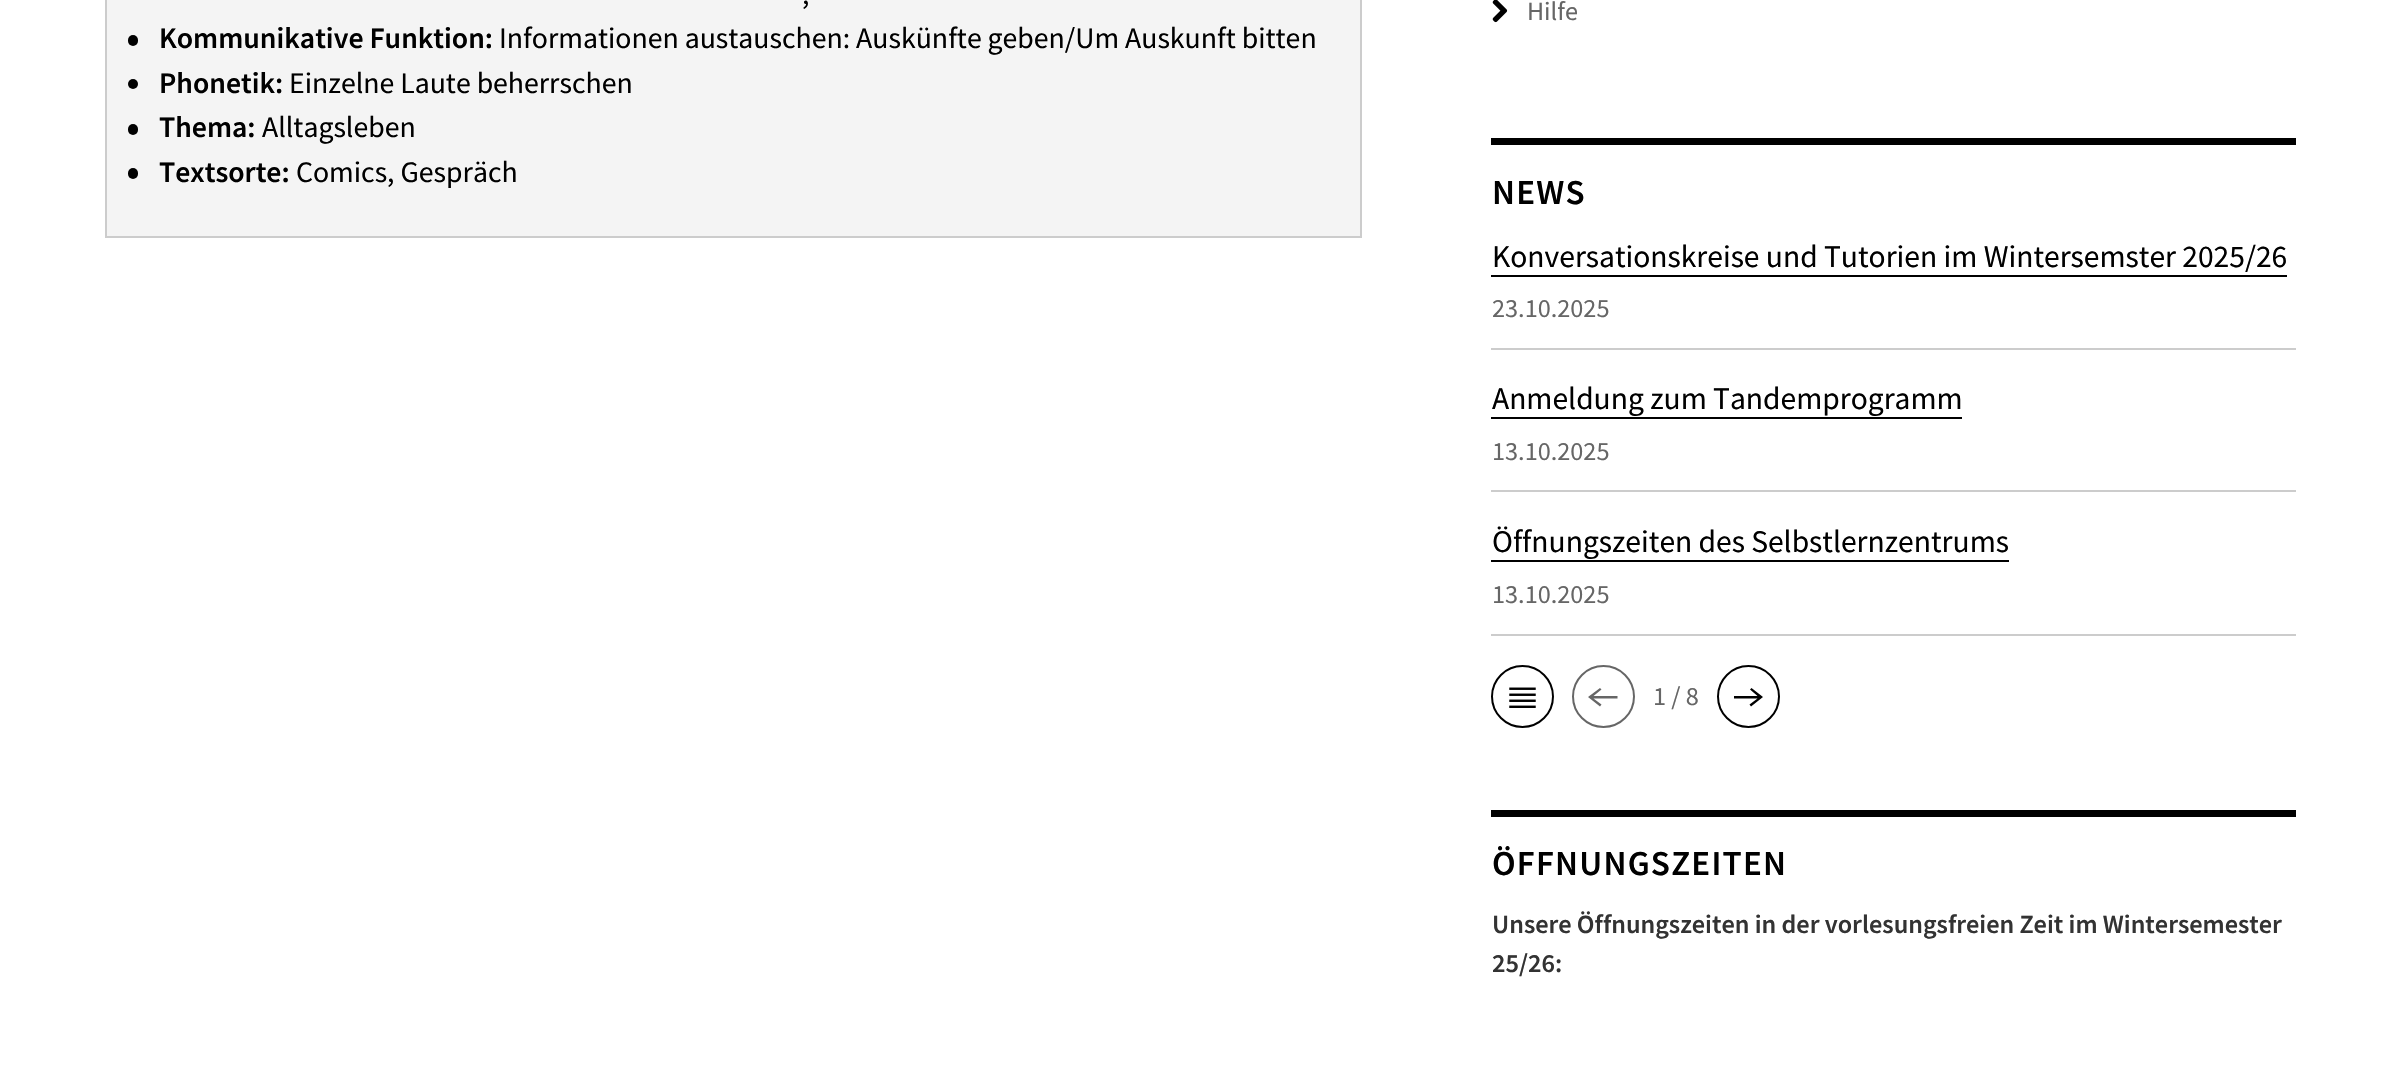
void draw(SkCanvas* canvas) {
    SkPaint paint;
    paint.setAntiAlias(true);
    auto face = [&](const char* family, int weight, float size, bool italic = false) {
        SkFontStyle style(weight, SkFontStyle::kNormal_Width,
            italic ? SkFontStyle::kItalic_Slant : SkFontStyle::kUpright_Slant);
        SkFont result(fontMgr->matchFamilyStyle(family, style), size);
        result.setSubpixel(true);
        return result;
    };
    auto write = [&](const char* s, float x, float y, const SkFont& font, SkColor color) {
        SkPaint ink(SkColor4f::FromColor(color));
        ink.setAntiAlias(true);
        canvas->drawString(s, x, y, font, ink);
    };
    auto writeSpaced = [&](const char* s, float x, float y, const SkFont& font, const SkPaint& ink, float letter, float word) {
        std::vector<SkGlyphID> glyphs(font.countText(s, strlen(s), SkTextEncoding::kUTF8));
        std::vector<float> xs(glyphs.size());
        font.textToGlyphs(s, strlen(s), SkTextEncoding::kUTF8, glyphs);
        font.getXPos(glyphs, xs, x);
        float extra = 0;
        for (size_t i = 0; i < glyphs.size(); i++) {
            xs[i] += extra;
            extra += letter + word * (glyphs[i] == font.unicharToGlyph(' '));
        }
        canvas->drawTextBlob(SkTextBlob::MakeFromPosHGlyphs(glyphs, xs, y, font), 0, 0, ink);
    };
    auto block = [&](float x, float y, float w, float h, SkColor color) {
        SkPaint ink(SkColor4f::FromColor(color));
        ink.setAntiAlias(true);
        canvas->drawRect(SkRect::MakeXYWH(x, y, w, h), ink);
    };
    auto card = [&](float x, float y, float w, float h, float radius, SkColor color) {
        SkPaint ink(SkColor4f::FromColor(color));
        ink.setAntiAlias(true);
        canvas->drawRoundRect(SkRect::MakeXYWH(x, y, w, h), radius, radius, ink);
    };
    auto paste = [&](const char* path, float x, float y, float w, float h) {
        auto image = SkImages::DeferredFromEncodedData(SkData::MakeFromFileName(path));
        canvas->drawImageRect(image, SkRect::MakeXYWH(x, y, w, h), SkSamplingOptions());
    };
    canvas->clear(SK_ColorWHITE);
    paint.setColor(SkColorSetRGB(244, 244, 244));
    canvas->drawRect(SkRect::MakeXYWH(106, -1, 1255, 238), paint);
    paint.setStyle(SkPaint::kStroke_Style);
    paint.setStrokeWidth(2);
    paint.setColor(SkColorSetRGB(204, 204, 204));
    canvas->drawRect(SkRect::MakeXYWH(106, -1, 1255, 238), paint);
    auto kFont1 = face("Source Sans Pro", 400, 29.75f);
    write(",", 802, 4, kFont1, SK_ColorBLACK);
    card(128, 35, 10, 11, 5, SK_ColorBLACK);
    auto kFont2 = face("Source Sans Pro", 600, 29.75f);
    write("Kommunikative Funktion:", 159, 48, kFont2, SK_ColorBLACK);
    write("Informationen austauschen: Auskünfte geben/Um Auskunft bitten", 499, 48, kFont1, SK_ColorBLACK);
    paint.setStyle(SkPaint::kFill_Style);
    paint.setColor(SK_ColorBLACK);
    canvas->drawCircle(133, 84, 5, paint);
    write("Phonetik:", 159, 93, kFont2, SK_ColorBLACK);
    write("Einzelne Laute beherrschen", 289, 93, kFont1, SK_ColorBLACK);
    card(128, 124, 10, 11, 5, SK_ColorBLACK);
    write("Thema:", 159, 137, kFont2, SK_ColorBLACK);
    write("Alltagsleben", 262, 137, kFont1, SK_ColorBLACK);
    card(128, 168, 10, 11, 5, SK_ColorBLACK);
    write("Textsorte:", 159, 182, kFont2, SK_ColorBLACK);
    write("Comics, Gespräch", 296, 182, kFont1, SK_ColorBLACK);
    paste("pic1.png", 1492, 0, 16, 23);
    auto kFont3 = face("Source Sans Pro", 400, 26.25f);
    write("Hilfe", 1527, 20, kFont3, SkColorSetRGB(102, 102, 102));
    block(1491, 138, 805, 7, SK_ColorBLACK);
    auto kFont4 = face("Source Sans Pro", 600, 35);
    writeSpaced("NEWS", 1492, 204, kFont4, paint, 1.25f, 0);
    block(1491, 348, 805, 2, SkColorSetRGB(204, 204, 204));
    auto kFont5 = face("Source Sans Pro", 400, 31.5f);
    write("Konversationskreise und Tutorien im Wintersemster 2025/26", 1492, 267, kFont5, SK_ColorBLACK);
    block(1491, 275, 796, 2, SK_ColorBLACK);
    write("23.10.2025", 1492, 317, kFont3, SkColorSetRGB(102, 102, 102));
    block(1491, 490, 805, 2, SkColorSetRGB(204, 204, 204));
    write("Anmeldung zum Tandemprogramm", 1492, 409, kFont5, SK_ColorBLACK);
    block(1491, 417, 471, 2, SK_ColorBLACK);
    write("13.10.2025", 1492, 460, kFont3, SkColorSetRGB(102, 102, 102));
    block(1491, 634, 805, 2, SkColorSetRGB(204, 204, 204));
    write("Öffnungszeiten des Selbstlernzentrums", 1492, 552, kFont5, SK_ColorBLACK);
    block(1491, 560, 518, 2, SK_ColorBLACK);
    write("13.10.2025", 1492, 603, kFont3, SkColorSetRGB(102, 102, 102));
    paint.setStyle(SkPaint::kStroke_Style);
    canvas->drawCircle(1522.5f, 696.5f, 30.5f, paint);
    paste("pic2.png", 1509, 687, 27, 21);
    paint.setColor(SkColorSetRGB(102, 102, 102));
    canvas->drawCircle(1603.5f, 696.5f, 30.5f, paint);
    paint.setStyle(SkPaint::kFill_Style);
    canvas->drawPath(SkPathBuilder().moveTo(1617.5f, 696).lineTo(1593.5f, 696).lineTo(1601.5f, 689.5f).lineTo(1600, 688).lineTo(1588, 697).lineTo(1600, 706.5f).lineTo(1601.5f, 704.5f).lineTo(1593.5f, 698.5f).lineTo(1617.5f, 698.5f).close().detach(), paint);
    write("1 / 8", 1653, 705, kFont3, SkColorSetRGB(102, 102, 102));
    paint.setStyle(SkPaint::kStroke_Style);
    paint.setColor(SK_ColorBLACK);
    canvas->drawCircle(1748.5f, 696.5f, 30.5f, paint);
    paint.setStyle(SkPaint::kFill_Style);
    canvas->drawPath(SkPathBuilder().moveTo(1751.5f, 688).lineTo(1750, 689.5f).lineTo(1757.5f, 696).lineTo(1734, 696).lineTo(1734, 698.5f).lineTo(1757.5f, 698.5f).lineTo(1749.5f, 704.5f).lineTo(1751, 706.5f).lineTo(1763, 697).close().detach(), paint);
    block(1491, 810, 805, 7, SK_ColorBLACK);
    writeSpaced("ÖFFNUNGSZEITEN", 1492, 875, kFont4, paint, 1.25f, 0);
    auto kFont6 = face("Source Sans Pro", 600, 26.25f);
    write("Unsere Öffnungszeiten in der vorlesungsfreien Zeit im Wintersemester", 1492, 933, kFont6, SkColorSetRGB(51, 51, 51));
    write("25/26:", 1492, 972, kFont6, SkColorSetRGB(51, 51, 51));
}
